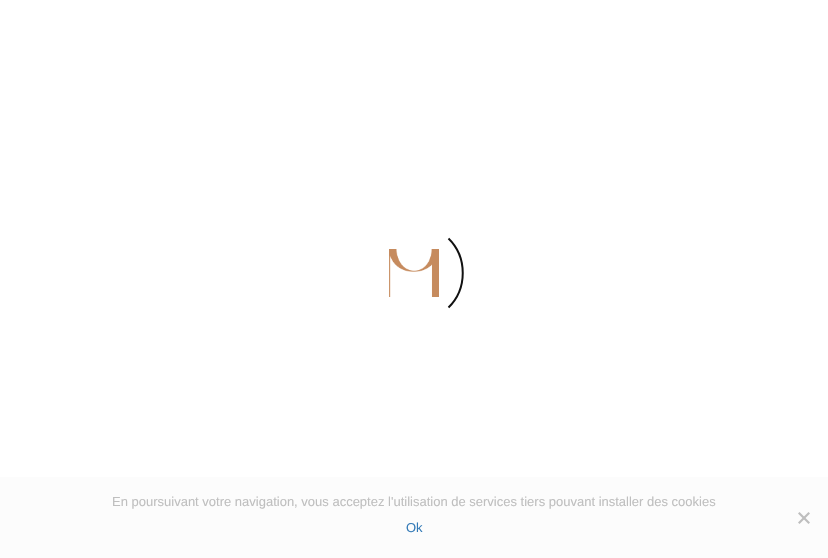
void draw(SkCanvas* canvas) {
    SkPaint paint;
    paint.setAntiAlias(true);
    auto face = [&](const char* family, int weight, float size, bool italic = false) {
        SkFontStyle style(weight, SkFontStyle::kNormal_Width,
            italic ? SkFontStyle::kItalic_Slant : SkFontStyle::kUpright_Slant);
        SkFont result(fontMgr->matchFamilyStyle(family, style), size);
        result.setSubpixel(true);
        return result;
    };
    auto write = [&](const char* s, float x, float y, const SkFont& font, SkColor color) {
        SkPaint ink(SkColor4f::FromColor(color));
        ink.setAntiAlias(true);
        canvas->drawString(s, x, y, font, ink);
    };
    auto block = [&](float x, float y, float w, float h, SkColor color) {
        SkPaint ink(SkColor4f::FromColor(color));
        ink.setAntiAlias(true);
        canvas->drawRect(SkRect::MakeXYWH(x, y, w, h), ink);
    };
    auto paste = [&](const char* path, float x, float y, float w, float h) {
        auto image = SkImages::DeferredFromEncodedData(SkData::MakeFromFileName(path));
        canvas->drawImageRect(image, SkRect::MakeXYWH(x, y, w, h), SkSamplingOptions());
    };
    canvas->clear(SK_ColorWHITE);
    paste("pic1.png", 389, 249, 50, 48);
    paint.setStyle(SkPaint::kStroke_Style);
    paint.setStrokeWidth(2);
    paint.setColor(SkColorSetRGB(17, 17, 17));
    canvas->drawPath(SkPathBuilder().moveTo(448.5f, 238.5f).cubicTo(467.5f, 257, 467.5f, 289, 448.5f, 307.5f).detach(), paint);
    block(0, 477, 828, 81, SkColorSetRGB(252, 252, 252));
    auto kFont1 = face("Liberation Sans", 400, 13);
    write("En poursuivant votre navigation, vous acceptez l'utilisation de services tiers pouvant installer des cookies", 112, 506, kFont1, SkColorSetRGB(191, 191, 191));
    paint.setStyle(SkPaint::kFill_Style);
    paint.setColor(SkColorSetRGB(190, 190, 190));
    canvas->drawPath(SkPathBuilder().moveTo(808.5f, 512).lineTo(810, 513.5f).lineTo(799.5f, 524).lineTo(798, 522.5f).close().detach(), paint);
    canvas->drawPath(SkPathBuilder().moveTo(798, 513.5f).lineTo(799.5f, 512).lineTo(810, 522.5f).lineTo(808.5f, 524).close().detach(), paint);
    write("Ok", 406, 532, kFont1, SkColorSetRGB(51, 122, 183));
}
